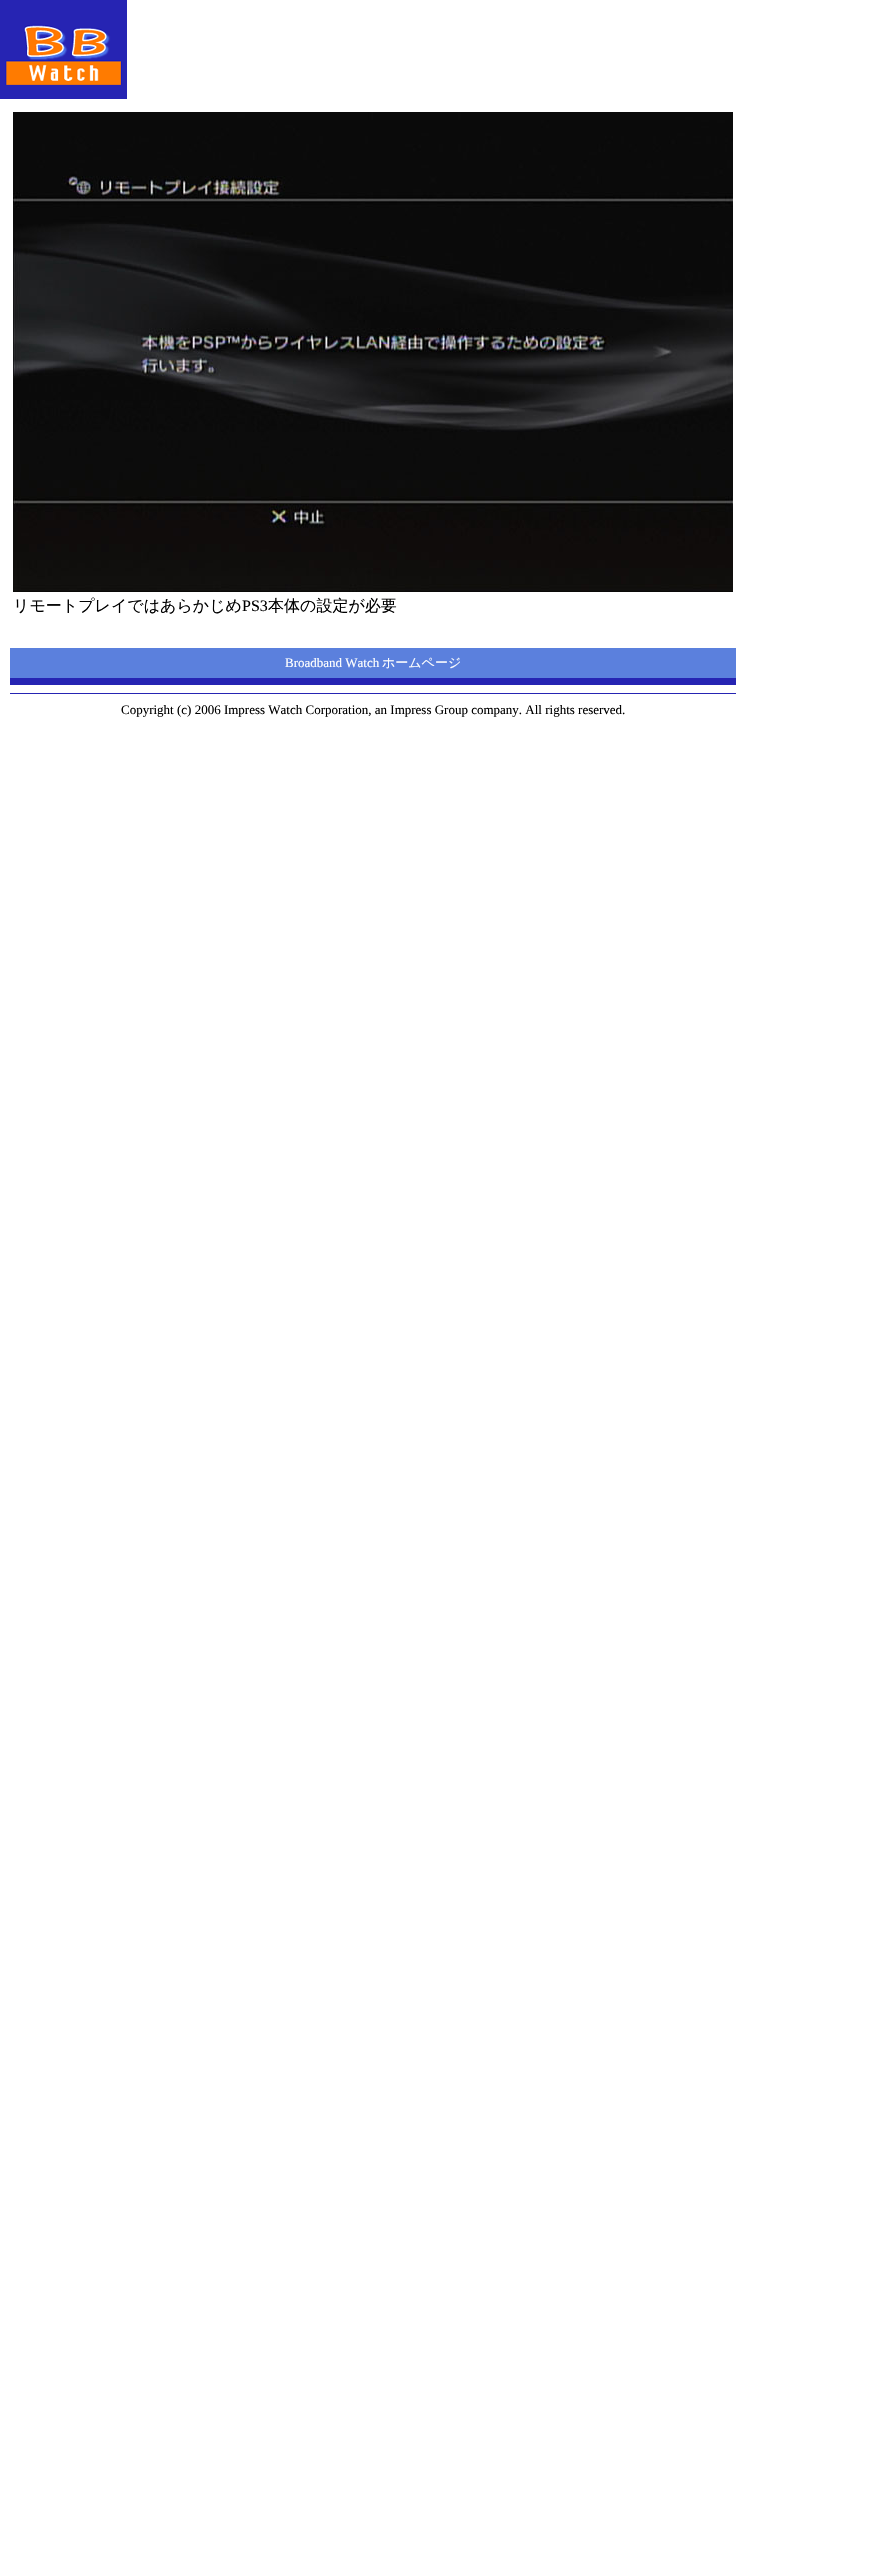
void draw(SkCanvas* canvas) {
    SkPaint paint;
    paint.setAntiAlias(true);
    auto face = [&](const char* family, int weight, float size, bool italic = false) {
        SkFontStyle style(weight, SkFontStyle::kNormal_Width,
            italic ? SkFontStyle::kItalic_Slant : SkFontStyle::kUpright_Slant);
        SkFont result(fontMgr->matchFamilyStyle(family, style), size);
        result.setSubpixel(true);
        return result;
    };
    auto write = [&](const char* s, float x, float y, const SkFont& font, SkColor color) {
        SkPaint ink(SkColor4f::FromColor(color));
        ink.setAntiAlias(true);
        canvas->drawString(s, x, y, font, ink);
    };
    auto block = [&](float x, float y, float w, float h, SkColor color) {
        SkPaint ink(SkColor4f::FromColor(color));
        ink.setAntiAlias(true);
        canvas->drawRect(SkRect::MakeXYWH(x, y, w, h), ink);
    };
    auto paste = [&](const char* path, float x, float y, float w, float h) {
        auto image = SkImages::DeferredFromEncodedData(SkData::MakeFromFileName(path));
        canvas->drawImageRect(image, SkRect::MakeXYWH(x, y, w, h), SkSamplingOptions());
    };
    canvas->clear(SK_ColorWHITE);
    paste("pic1.png", 0, 0, 127, 99);
    paste("pic2.png", 13, 112, 720, 480);
    auto kFont1 = face("WenQuanYi Zen Hei", 500, 16);
    write("リモートプレイではあらかじめ", 13, 611, kFont1, SK_ColorBLACK);
    auto kFont2 = face("Liberation Serif", 400, 16);
    write("PS3", 242, 611, kFont2, SK_ColorBLACK);
    write("本体の設定が必要", 268, 611, kFont1, SK_ColorBLACK);
    block(10, 648, 726, 30, SkColorSetRGB(91, 128, 221));
    auto kFont3 = face("Liberation Serif", 400, 13);
    write("Broadband Watch", 285, 667, kFont3, SK_ColorWHITE);
    auto kFont4 = face("WenQuanYi Zen Hei", 500, 13);
    write("ホームページ", 382, 667, kFont4, SK_ColorWHITE);
    block(10, 678, 726, 7, SkColorSetRGB(38, 36, 179));
    block(10, 693, 726, 1, SkColorSetRGB(38, 36, 179));
    write("Copyright (c) 2006 Impress Watch Corporation, an Impress Group company. All rights reserved.", 121, 714, kFont3, SK_ColorBLACK);
}
